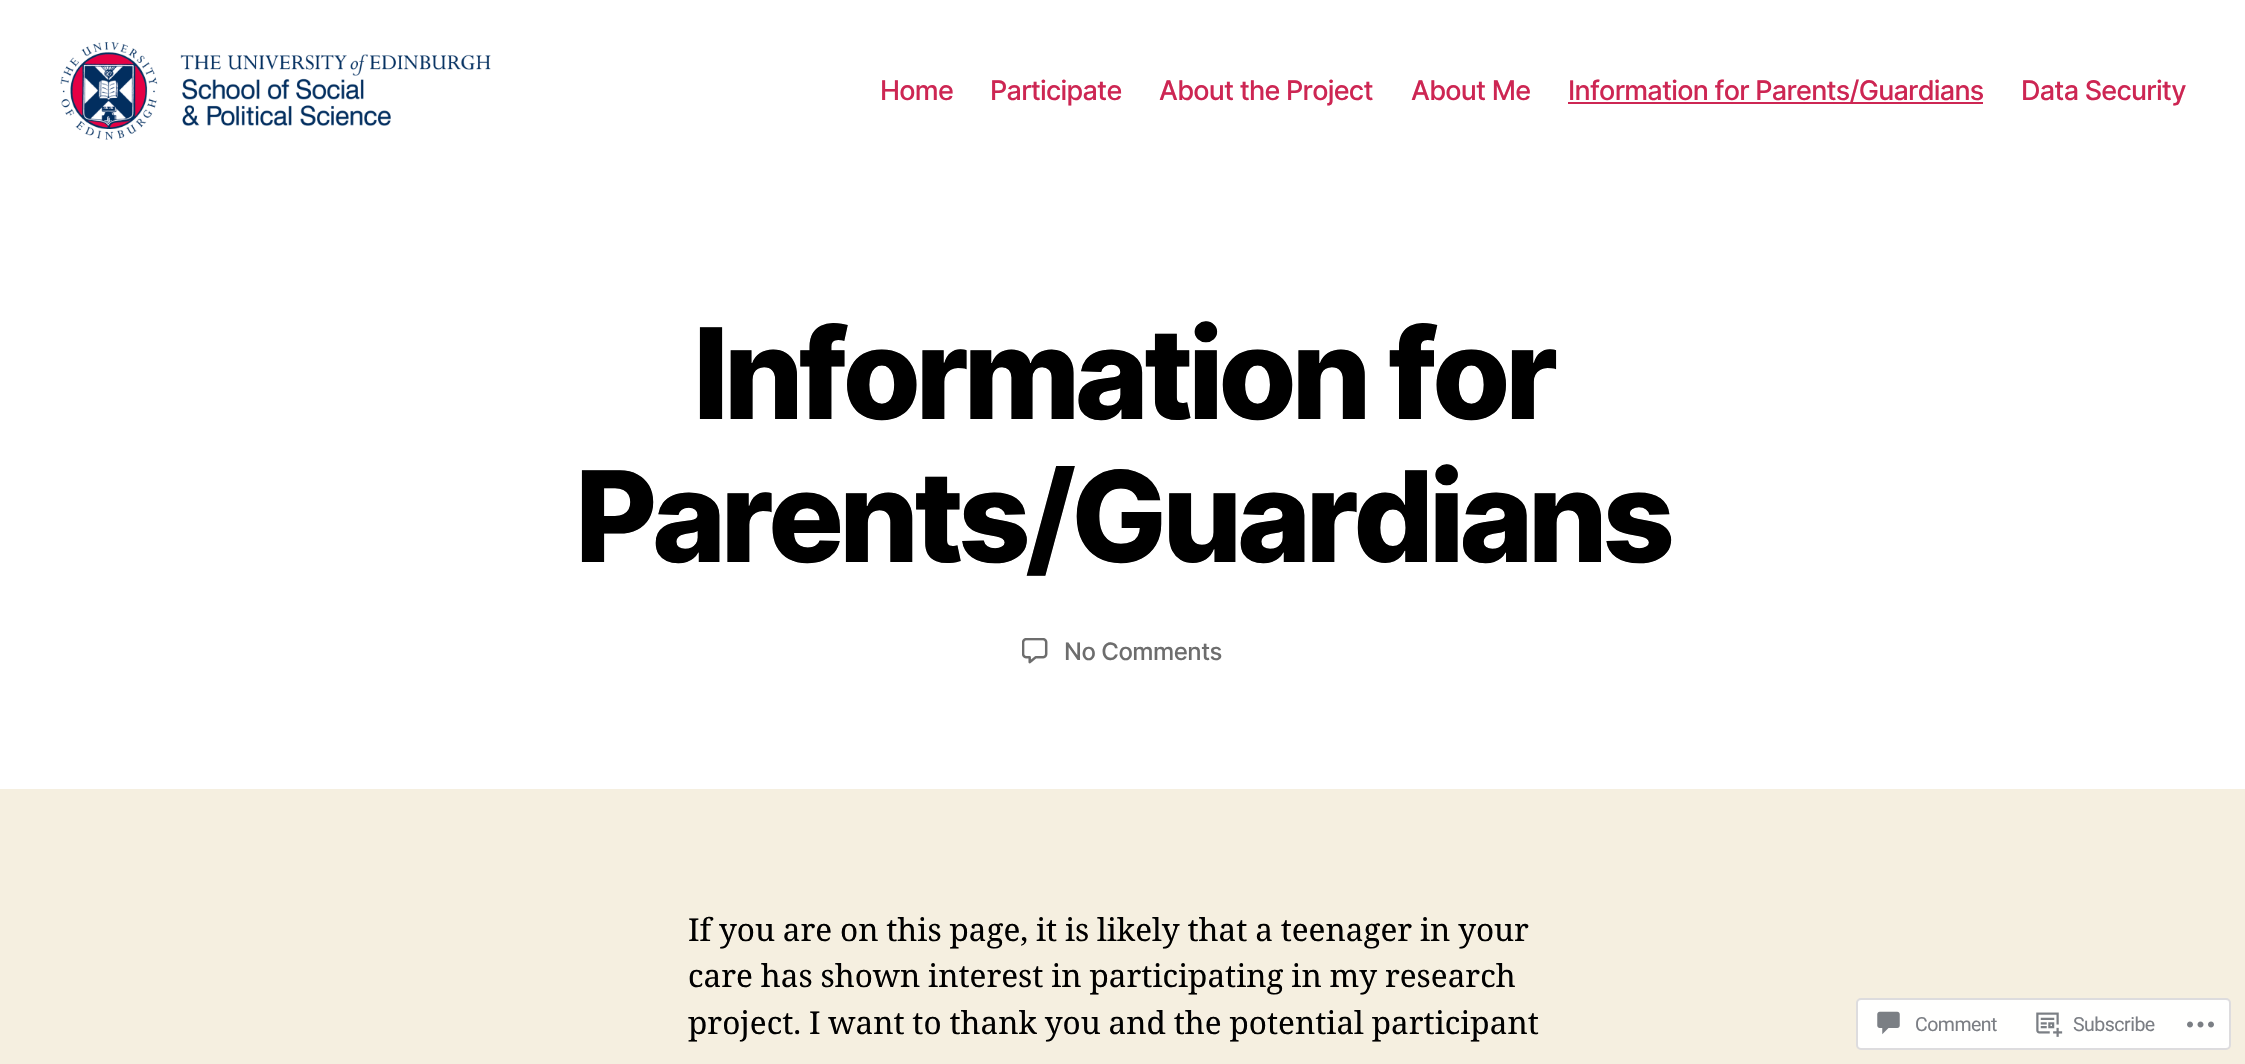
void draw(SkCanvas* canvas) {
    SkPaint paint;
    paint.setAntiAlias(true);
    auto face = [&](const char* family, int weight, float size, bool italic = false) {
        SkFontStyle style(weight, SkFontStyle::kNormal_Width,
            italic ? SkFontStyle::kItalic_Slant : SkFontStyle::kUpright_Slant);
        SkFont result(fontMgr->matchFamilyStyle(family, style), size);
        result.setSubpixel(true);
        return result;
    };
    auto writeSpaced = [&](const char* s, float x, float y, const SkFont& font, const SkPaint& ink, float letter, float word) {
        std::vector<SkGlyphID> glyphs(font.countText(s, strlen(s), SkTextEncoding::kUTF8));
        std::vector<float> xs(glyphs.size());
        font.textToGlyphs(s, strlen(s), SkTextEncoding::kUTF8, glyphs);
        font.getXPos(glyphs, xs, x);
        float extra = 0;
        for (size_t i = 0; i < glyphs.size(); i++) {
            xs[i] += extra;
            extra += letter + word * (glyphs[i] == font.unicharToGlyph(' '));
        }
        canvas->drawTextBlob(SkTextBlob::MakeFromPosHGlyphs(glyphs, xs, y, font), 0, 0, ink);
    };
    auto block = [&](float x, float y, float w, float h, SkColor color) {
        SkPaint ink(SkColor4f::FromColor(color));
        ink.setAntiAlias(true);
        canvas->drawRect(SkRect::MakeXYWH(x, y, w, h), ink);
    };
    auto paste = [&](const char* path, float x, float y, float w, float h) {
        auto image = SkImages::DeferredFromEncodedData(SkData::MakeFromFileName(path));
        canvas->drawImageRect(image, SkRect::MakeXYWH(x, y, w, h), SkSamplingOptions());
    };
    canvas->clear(SkColorSetRGB(245, 239, 224));
    block(0, 0, 2245, 789, SK_ColorWHITE);
    paste("pic1.png", 60, 42, 431, 98);
    auto kFont1 = face("Inter", 500, 27);
    paint.setColor(SkColorSetRGB(205, 38, 83));
    writeSpaced("Home", 880, 100, kFont1, paint, -0.75f, 0);
    writeSpaced("Participate", 990, 100, kFont1, paint, -0.75f, 0);
    writeSpaced("About the Project", 1159, 100, kFont1, paint, -0.75f, 0);
    writeSpaced("About Me", 1411, 100, kFont1, paint, -0.75f, 0);
    block(1568, 102, 415, 2, SkColorSetRGB(205, 38, 83));
    writeSpaced("Information for Parents/Guardians", 1568, 100, kFont1, paint, -0.75f, 0);
    writeSpaced("Data Security", 2021, 100, kFont1, paint, -0.75f, 0);
    auto kFont2 = face("Inter", 800, 126);
    paint.setColor(SK_ColorBLACK);
    writeSpaced("Information for", 693, 419, kFont2, paint, -5.25f, 0);
    writeSpaced("Parents/Guardians", 575, 562, kFont2, paint, -5.25f, 0);
    paste("pic2.png", 1022, 638, 26, 26);
    auto kFont3 = face("Inter", 500, 24);
    paint.setColor(SkColorSetRGB(109, 109, 109));
    writeSpaced("No Comments", 1064, 660, kFont3, paint, -0.5f, 0);
    auto kFont4 = face("Noto Serif", 400, 31.5f);
    paint.setColor(SK_ColorBLACK);
    writeSpaced("If you are on this page, it is likely that a teenager in your", 688, 941, kFont4, paint, 0, -0.4f);
    writeSpaced("care has shown interest in participating in my research", 688, 987, kFont4, paint, 0, -0.4f);
    writeSpaced("project. I want to thank you and the potential participant", 688, 1034, kFont4, paint, 0, -0.4f);
    paint.setColor(SkColorSetRGB(255, 255, 254));
    canvas->drawRoundRect(SkRect::MakeXYWH(1857, 999, 373, 50), 4, 4, paint);
    paint.setStyle(SkPaint::kStroke_Style);
    paint.setStrokeWidth(2);
    paint.setColor(SkColorSetRGB(221, 220, 222));
    canvas->drawRoundRect(SkRect::MakeXYWH(1857, 999, 373, 50), 4, 4, paint);
    paste("pic3.png", 1877, 1011, 23, 24);
    auto kFont5 = face("Roboto", 400, 19.5f);
    paint.setStyle(SkPaint::kFill_Style);
    paint.setColor(SkColorSetRGB(123, 126, 132));
    writeSpaced("Comment", 1915, 1031, kFont5, paint, -0.5f, 0);
    paste("pic4.png", 2036, 1012, 27, 25);
    writeSpaced("Subscribe", 2073, 1031, kFont5, paint, -0.5f, 0);
    paste("pic5.png", 2187, 1021, 27, 7);
}
